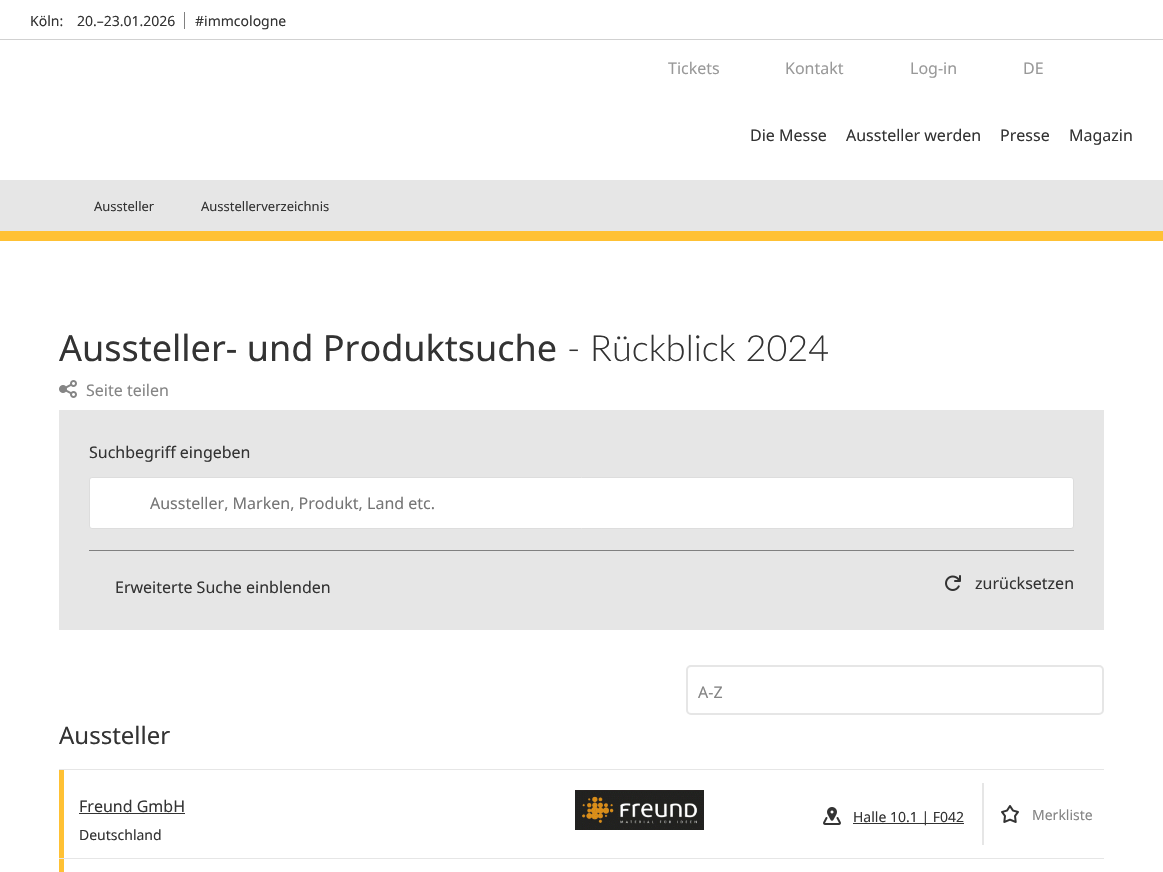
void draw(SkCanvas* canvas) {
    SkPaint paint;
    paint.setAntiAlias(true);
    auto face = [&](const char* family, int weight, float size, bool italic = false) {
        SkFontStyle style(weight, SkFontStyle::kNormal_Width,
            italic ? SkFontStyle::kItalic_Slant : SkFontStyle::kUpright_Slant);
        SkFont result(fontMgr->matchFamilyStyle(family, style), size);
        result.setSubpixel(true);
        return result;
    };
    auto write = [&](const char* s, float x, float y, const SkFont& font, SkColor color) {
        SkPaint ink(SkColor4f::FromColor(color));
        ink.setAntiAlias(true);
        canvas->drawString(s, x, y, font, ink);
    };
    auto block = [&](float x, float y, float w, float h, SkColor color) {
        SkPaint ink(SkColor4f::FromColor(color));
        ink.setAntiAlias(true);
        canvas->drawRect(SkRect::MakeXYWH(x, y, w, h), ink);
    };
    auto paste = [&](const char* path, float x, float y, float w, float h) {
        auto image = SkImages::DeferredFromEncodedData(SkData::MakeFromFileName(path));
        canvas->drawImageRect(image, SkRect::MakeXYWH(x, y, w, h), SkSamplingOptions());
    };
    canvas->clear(SK_ColorWHITE);
    auto kFont1 = face("Noto Sans", 400, 14);
    write("Köln:", 30, 26, kFont1, SkColorSetRGB(51, 51, 51));
    write("20.–23.01.2026", 77, 26, kFont1, SkColorSetRGB(51, 51, 51));
    block(184, 12, 1, 17, SkColorSetRGB(128, 128, 128));
    write("#immcologne", 195, 26, kFont1, SkColorSetRGB(51, 51, 51));
    block(0, 39, 1163, 1, SkColorSetRGB(209, 209, 209));
    auto kFont2 = face("Noto Sans", 400, 16);
    write("Tickets", 668, 74, kFont2, SkColorSetRGB(153, 153, 153));
    write("Kontakt", 785, 74, kFont2, SkColorSetRGB(153, 153, 153));
    write("Log-in", 910, 74, kFont2, SkColorSetRGB(153, 153, 153));
    write("DE", 1023, 74, kFont2, SkColorSetRGB(153, 153, 153));
    write("Die Messe", 750, 141, kFont2, SkColorSetRGB(51, 51, 51));
    write("Aussteller werden", 846, 141, kFont2, SkColorSetRGB(51, 51, 51));
    write("Presse", 1000, 141, kFont2, SkColorSetRGB(51, 51, 51));
    write("Magazin", 1069, 141, kFont2, SkColorSetRGB(51, 51, 51));
    block(0, 180, 1163, 51, SkColorSetRGB(230, 230, 230));
    block(0, 231, 1163, 10, SkColorSetRGB(255, 193, 52));
    auto kFont3 = face("Noto Sans", 400, 13);
    write("Aussteller", 94, 211, kFont3, SkColorSetRGB(51, 51, 51));
    write("Ausstellerverzeichnis", 201, 211, kFont3, SkColorSetRGB(51, 51, 51));
    auto kFont4 = face("Noto Sans", 400, 36);
    write("Aussteller- und Produktsuche", 59, 361, kFont4, SkColorSetRGB(51, 51, 51));
    auto kFont5 = face("Lato", 300, 36);
    write("- Rückblick 2024", 567, 361, kFont5, SkColorSetRGB(51, 51, 51));
    paste("pic1.png", 59, 380, 18, 18);
    write("Seite teilen", 86, 396, kFont2, SkColorSetRGB(133, 133, 133));
    block(59, 410, 1045, 220, SkColorSetRGB(230, 230, 230));
    block(89, 550, 985, 1, SkColorSetRGB(128, 128, 128));
    write("Suchbegriff eingeben", 89, 458, kFont2, SkColorSetRGB(51, 51, 51));
    paint.setColor(SK_ColorWHITE);
    canvas->drawRoundRect(SkRect::MakeXYWH(89.5f, 477.5f, 984, 51), 2.5f, 2.5f, paint);
    paint.setStyle(SkPaint::kStroke_Style);
    paint.setStrokeWidth(1);
    paint.setColor(SkColorSetRGB(221, 221, 221));
    canvas->drawRoundRect(SkRect::MakeXYWH(89.5f, 477.5f, 984, 51), 2.5f, 2.5f, paint);
    write("Aussteller, Marken, Produkt, Land etc.", 150, 509, kFont2, SkColorSetRGB(117, 117, 117));
    write("Erweiterte Suche einblenden", 115, 593, kFont2, SkColorSetRGB(51, 51, 51));
    paste("pic2.png", 945, 575, 16, 16);
    write("zurücksetzen", 975, 589, kFont2, SkColorSetRGB(51, 51, 51));
    paint.setStrokeWidth(2);
    paint.setColor(SkColorSetRGB(230, 230, 230));
    canvas->drawRoundRect(SkRect::MakeXYWH(687, 666, 416, 48), 4, 4, paint);
    write("A-Z", 698, 698, kFont2, SkColorSetRGB(133, 133, 133));
    auto kFont6 = face("Noto Sans", 400, 24);
    write("Aussteller", 59, 744, kFont6, SkColorSetRGB(51, 51, 51));
    block(59, 769, 1045, 1, SkColorSetRGB(230, 230, 230));
    block(59, 858, 1045, 1, SkColorSetRGB(230, 230, 230));
    block(59, 770, 5, 88, SkColorSetRGB(255, 193, 52));
    write("Freund GmbH", 79, 812, kFont2, SkColorSetRGB(51, 51, 51));
    block(79, 813, 106, 1, SkColorSetRGB(51, 51, 51));
    write("Deutschland", 79, 840, kFont1, SkColorSetRGB(51, 51, 51));
    paste("pic3.png", 575, 790, 129, 40);
    paste("pic4.png", 823, 807, 18, 18);
    block(853, 823, 111, 1, SkColorSetRGB(51, 51, 51));
    write("Halle 10.1 | F042", 853, 822, kFont1, SkColorSetRGB(51, 51, 51));
    block(982, 783, 2, 62, SkColorSetRGB(230, 230, 230));
    paste("pic5.png", 1001, 805, 18, 18);
    write("Merkliste", 1032, 820, kFont1, SkColorSetRGB(133, 133, 133));
    block(59, 859, 5, 13, SkColorSetRGB(255, 193, 52));
}
